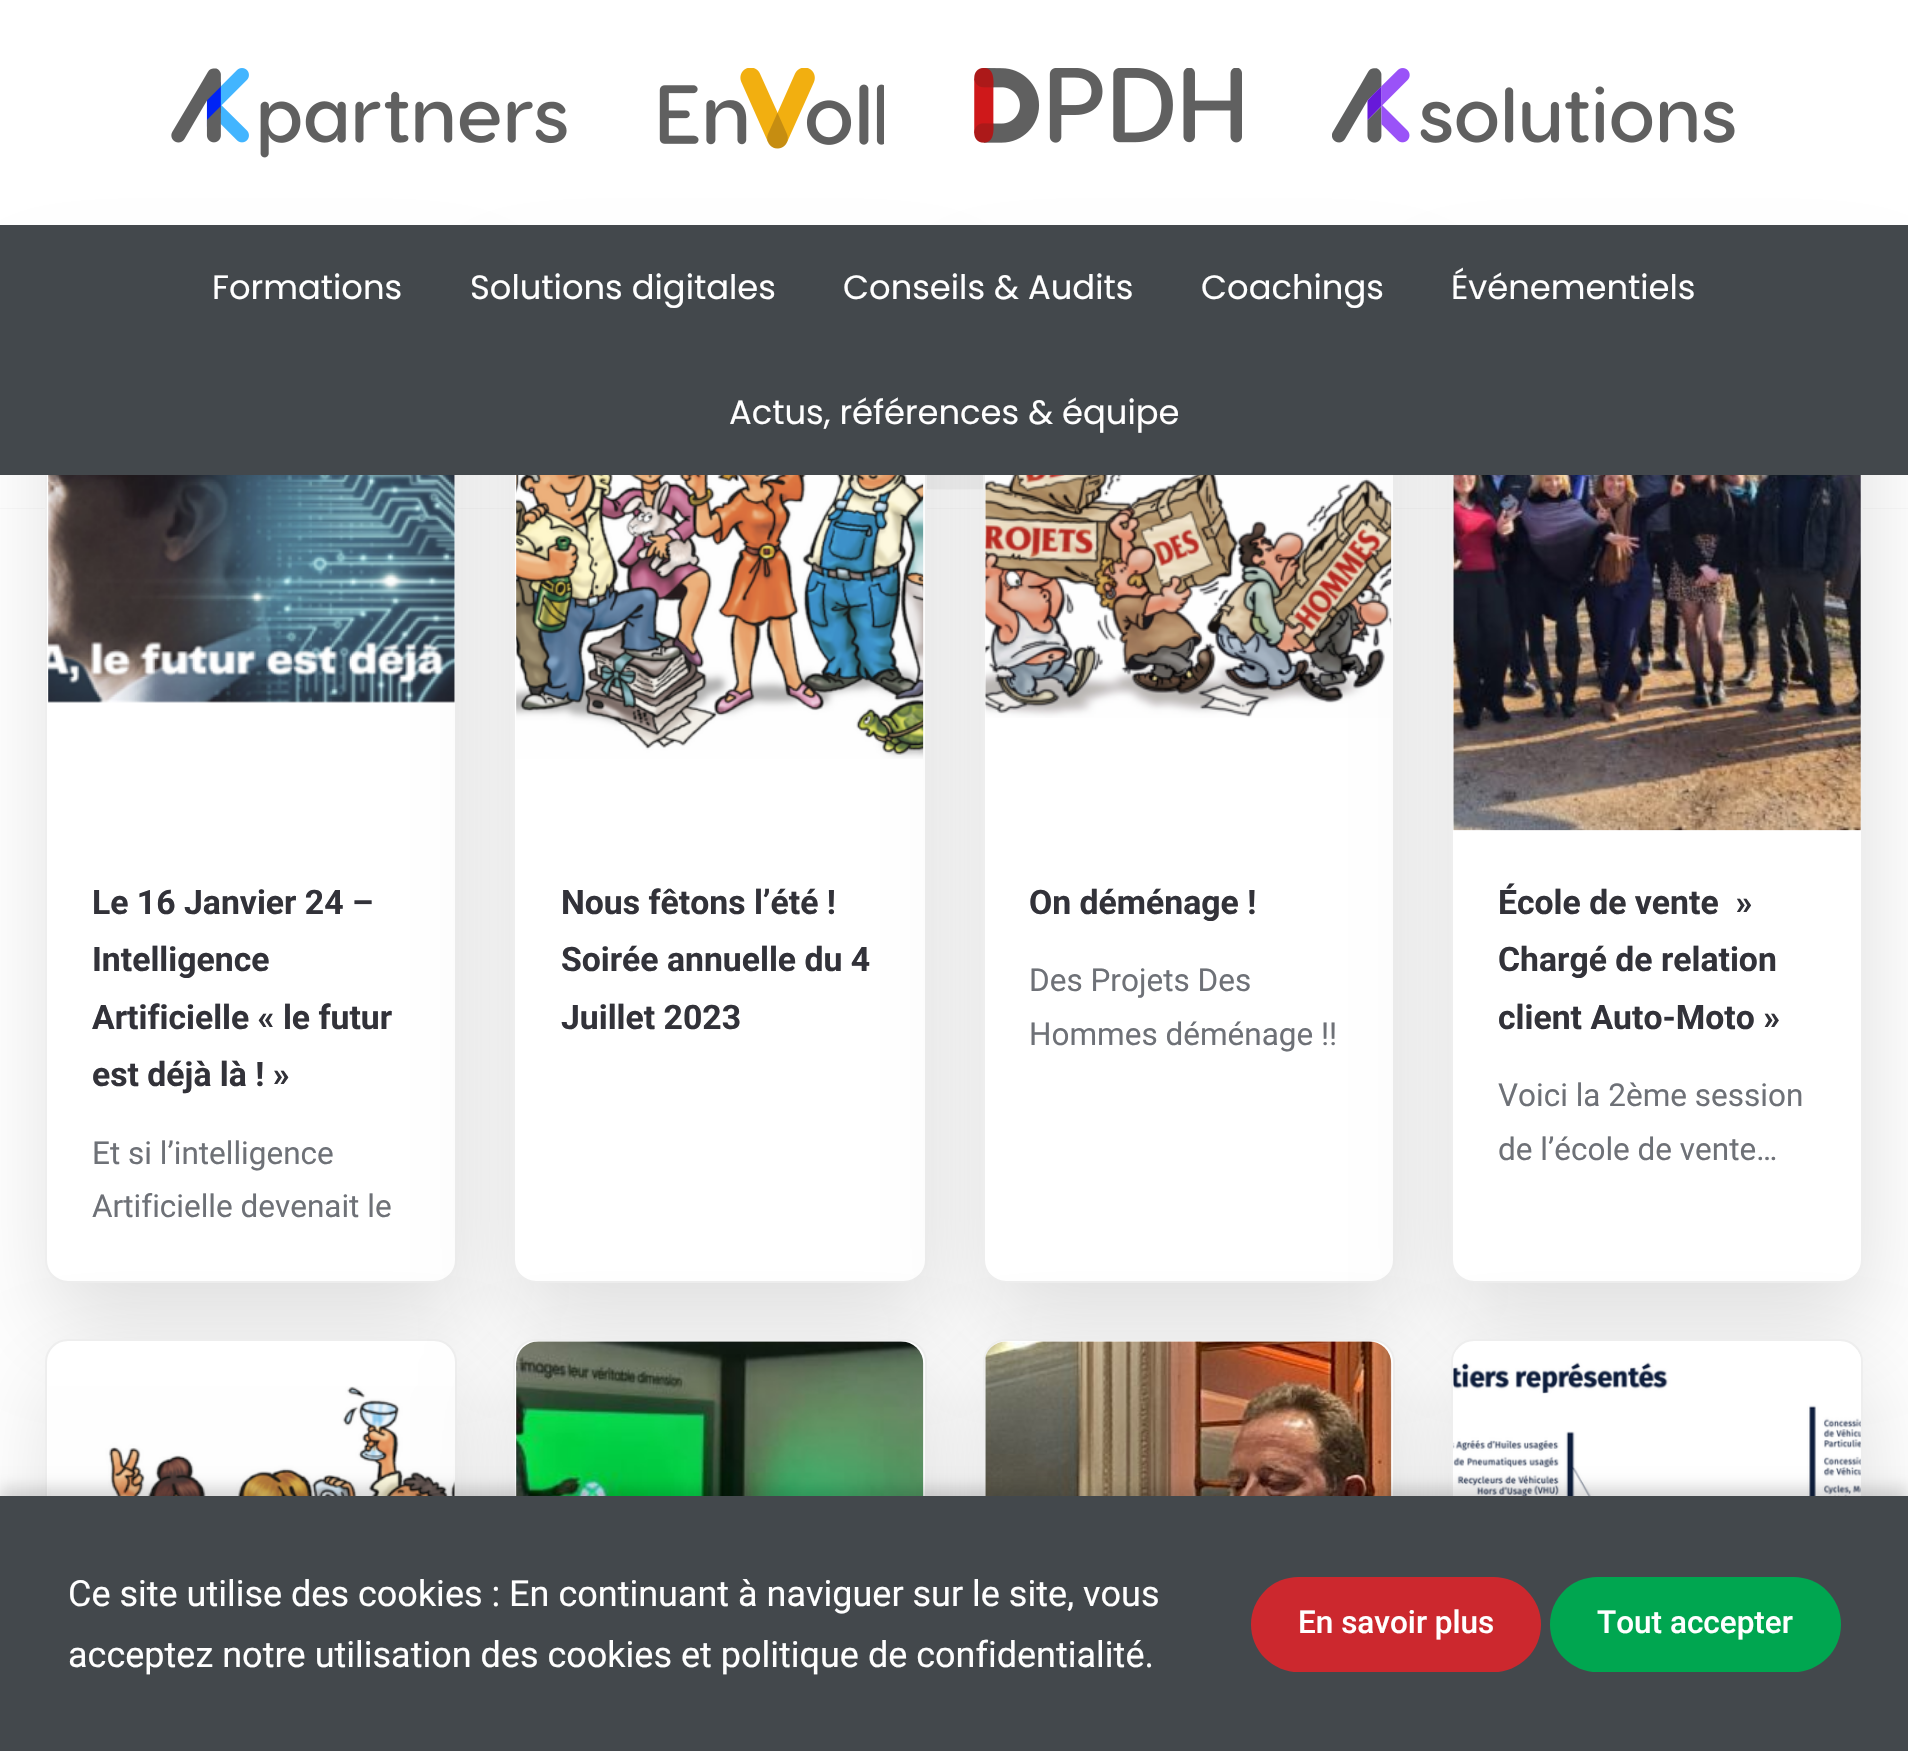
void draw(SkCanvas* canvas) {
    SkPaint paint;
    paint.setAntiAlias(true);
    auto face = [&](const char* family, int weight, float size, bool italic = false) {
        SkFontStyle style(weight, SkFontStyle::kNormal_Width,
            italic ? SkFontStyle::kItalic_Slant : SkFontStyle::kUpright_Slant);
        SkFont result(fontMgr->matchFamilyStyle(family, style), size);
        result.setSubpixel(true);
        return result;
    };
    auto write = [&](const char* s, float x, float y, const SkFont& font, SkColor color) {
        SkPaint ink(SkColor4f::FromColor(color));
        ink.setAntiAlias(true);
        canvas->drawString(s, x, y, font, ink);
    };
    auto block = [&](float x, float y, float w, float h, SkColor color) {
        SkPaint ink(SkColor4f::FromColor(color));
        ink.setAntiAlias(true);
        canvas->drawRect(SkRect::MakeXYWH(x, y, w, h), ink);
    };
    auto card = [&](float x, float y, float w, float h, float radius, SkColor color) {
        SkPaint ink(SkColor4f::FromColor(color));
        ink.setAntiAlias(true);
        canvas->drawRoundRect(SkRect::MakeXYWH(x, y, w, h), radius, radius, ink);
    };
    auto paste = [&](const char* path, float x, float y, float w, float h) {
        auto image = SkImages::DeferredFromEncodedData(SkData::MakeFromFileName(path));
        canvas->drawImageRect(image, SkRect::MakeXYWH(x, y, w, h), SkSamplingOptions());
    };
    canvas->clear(SK_ColorWHITE);
    paste("pic1.png", 171, 68, 396, 90);
    paste("pic2.png", 659, 68, 225, 81);
    paste("pic3.png", 974, 68, 268, 75);
    paste("pic4.png", 1332, 68, 403, 75);
    block(0, 475, 1908, 34, SkColorSetRGB(244, 244, 244));
    paste("pic5.png", 0, 475, 1908, 34);
    paint.setColor(SkColorSetARGB(31, 0, 0, 0));
    paint.setMaskFilter(SkMaskFilter::MakeBlur(kNormal_SkBlurStyle, 45));
    canvas->drawRoundRect(SkRect::MakeXYWH(50, 306, 411, 1017), 23, 23, paint);
    paint.setMaskFilter(nullptr);
    paint.setColor(SK_ColorWHITE);
    canvas->drawRoundRect(SkRect::MakeXYWH(46, 267, 410, 1015), 22, 22, paint);
    paint.setStyle(SkPaint::kStroke_Style);
    paint.setStrokeWidth(2);
    paint.setColor(SkColorSetRGB(238, 238, 238));
    canvas->drawRoundRect(SkRect::MakeXYWH(46, 267, 410, 1015), 22, 22, paint);
    paste("pic6.png", 48, 475, 407, 228);
    paint.setStyle(SkPaint::kFill_Style);
    paint.setColor(SkColorSetARGB(31, 0, 0, 0));
    paint.setMaskFilter(SkMaskFilter::MakeBlur(kNormal_SkBlurStyle, 45));
    canvas->drawRoundRect(SkRect::MakeXYWH(518, 306, 414, 1017), 23, 23, paint);
    paint.setMaskFilter(nullptr);
    paint.setColor(SK_ColorWHITE);
    canvas->drawRoundRect(SkRect::MakeXYWH(514, 267, 412, 1015), 22, 22, paint);
    paint.setStyle(SkPaint::kStroke_Style);
    paint.setColor(SkColorSetRGB(238, 238, 238));
    canvas->drawRoundRect(SkRect::MakeXYWH(514, 267, 412, 1015), 22, 22, paint);
    paste("pic7.png", 516, 475, 408, 284);
    paint.setStyle(SkPaint::kFill_Style);
    paint.setColor(SkColorSetARGB(31, 0, 0, 0));
    paint.setMaskFilter(SkMaskFilter::MakeBlur(kNormal_SkBlurStyle, 45));
    canvas->drawRoundRect(SkRect::MakeXYWH(988, 306, 412, 1017), 23, 23, paint);
    paint.setMaskFilter(nullptr);
    paint.setColor(SK_ColorWHITE);
    canvas->drawRoundRect(SkRect::MakeXYWH(984, 267, 410, 1015), 22, 22, paint);
    paint.setStyle(SkPaint::kStroke_Style);
    paint.setColor(SkColorSetRGB(238, 238, 238));
    canvas->drawRoundRect(SkRect::MakeXYWH(984, 267, 410, 1015), 22, 22, paint);
    paste("pic8.png", 985, 475, 407, 243);
    paint.setStyle(SkPaint::kFill_Style);
    paint.setColor(SkColorSetARGB(31, 0, 0, 0));
    paint.setMaskFilter(SkMaskFilter::MakeBlur(kNormal_SkBlurStyle, 45));
    canvas->drawRoundRect(SkRect::MakeXYWH(1456, 306, 412, 1017), 23, 23, paint);
    paint.setMaskFilter(nullptr);
    paint.setColor(SK_ColorWHITE);
    canvas->drawRoundRect(SkRect::MakeXYWH(1452, 267, 410, 1015), 22, 22, paint);
    paint.setStyle(SkPaint::kStroke_Style);
    paint.setColor(SkColorSetRGB(238, 238, 238));
    canvas->drawRoundRect(SkRect::MakeXYWH(1452, 267, 410, 1015), 22, 22, paint);
    block(0, 225, 1908, 250, SkColorSetRGB(67, 72, 76));
    auto kFont1 = face("Poppins", 400, 33.75f);
    write("Formations", 212, 299, kFont1, SK_ColorWHITE);
    write("Solutions digitales", 470, 299, kFont1, SK_ColorWHITE);
    write("Conseils & Audits", 843, 299, kFont1, SK_ColorWHITE);
    write("Coachings", 1201, 299, kFont1, SK_ColorWHITE);
    write("Événementiels", 1451, 299, kFont1, SK_ColorWHITE);
    write("Actus, références & équipe", 729, 424, kFont1, SK_ColorWHITE);
    auto kFont2 = face("Roboto", 700, 33.75f);
    write("Le 16 Janvier 24 –", 92, 914, kFont2, SkColorSetRGB(50, 50, 57));
    write("Intelligence", 92, 971, kFont2, SkColorSetRGB(50, 50, 57));
    write("Artificielle « le futur", 92, 1029, kFont2, SkColorSetRGB(50, 50, 57));
    write("est déjà là ! »", 92, 1086, kFont2, SkColorSetRGB(50, 50, 57));
    auto kFont3 = face("Roboto", 400, 31.5f);
    write("Et si l’intelligence", 92, 1164, kFont3, SkColorSetRGB(110, 113, 119));
    write("Artificielle devenait le", 92, 1217, kFont3, SkColorSetRGB(110, 113, 119));
    write("Nous fêtons l’été !", 561, 914, kFont2, SkColorSetRGB(50, 50, 57));
    write("Soirée annuelle du 4", 561, 971, kFont2, SkColorSetRGB(50, 50, 57));
    write("Juillet 2023", 561, 1029, kFont2, SkColorSetRGB(50, 50, 57));
    write("On déménage !", 1029, 914, kFont2, SkColorSetRGB(50, 50, 57));
    write("Des Projets Des", 1029, 991, kFont3, SkColorSetRGB(110, 113, 119));
    write("Hommes déménage !!", 1029, 1045, kFont3, SkColorSetRGB(110, 113, 119));
    paste("pic9.png", 1453, 475, 408, 356);
    write("École de vente  »", 1498, 914, kFont2, SkColorSetRGB(50, 50, 57));
    write("Chargé de relation", 1498, 971, kFont2, SkColorSetRGB(50, 50, 57));
    write("client Auto-Moto »", 1498, 1029, kFont2, SkColorSetRGB(50, 50, 57));
    write("Voici la 2ème session", 1498, 1106, kFont3, SkColorSetRGB(110, 113, 119));
    write("de l’école de vente…", 1498, 1160, kFont3, SkColorSetRGB(110, 113, 119));
    paint.setStyle(SkPaint::kFill_Style);
    paint.setColor(SkColorSetARGB(31, 0, 0, 0));
    paint.setMaskFilter(SkMaskFilter::MakeBlur(kNormal_SkBlurStyle, 45));
    canvas->drawRoundRect(SkRect::MakeXYWH(50, 1379, 411, 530), 23, 23, paint);
    paint.setMaskFilter(nullptr);
    paint.setColor(SK_ColorWHITE);
    canvas->drawRoundRect(SkRect::MakeXYWH(46, 1340, 410, 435), 22, 22, paint);
    paint.setStyle(SkPaint::kStroke_Style);
    paint.setColor(SkColorSetRGB(238, 238, 238));
    canvas->drawRoundRect(SkRect::MakeXYWH(46, 1340, 410, 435), 22, 22, paint);
    paste("pic10.png", 48, 1386, 407, 110);
    paint.setStyle(SkPaint::kFill_Style);
    paint.setColor(SkColorSetARGB(31, 0, 0, 0));
    paint.setMaskFilter(SkMaskFilter::MakeBlur(kNormal_SkBlurStyle, 45));
    canvas->drawRoundRect(SkRect::MakeXYWH(518, 1379, 414, 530), 23, 23, paint);
    paint.setMaskFilter(nullptr);
    paint.setColor(SK_ColorWHITE);
    canvas->drawRoundRect(SkRect::MakeXYWH(514, 1340, 412, 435), 22, 22, paint);
    paint.setStyle(SkPaint::kStroke_Style);
    paint.setColor(SkColorSetRGB(238, 238, 238));
    canvas->drawRoundRect(SkRect::MakeXYWH(514, 1340, 412, 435), 22, 22, paint);
    paste("pic11.png", 516, 1341, 408, 155);
    paint.setStyle(SkPaint::kFill_Style);
    paint.setColor(SkColorSetARGB(31, 0, 0, 0));
    paint.setMaskFilter(SkMaskFilter::MakeBlur(kNormal_SkBlurStyle, 45));
    canvas->drawRoundRect(SkRect::MakeXYWH(988, 1379, 412, 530), 23, 23, paint);
    paint.setMaskFilter(nullptr);
    paint.setColor(SK_ColorWHITE);
    canvas->drawRoundRect(SkRect::MakeXYWH(984, 1340, 410, 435), 22, 22, paint);
    paint.setStyle(SkPaint::kStroke_Style);
    paint.setColor(SkColorSetRGB(238, 238, 238));
    canvas->drawRoundRect(SkRect::MakeXYWH(984, 1340, 410, 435), 22, 22, paint);
    paste("pic12.png", 985, 1341, 407, 155);
    paint.setStyle(SkPaint::kFill_Style);
    paint.setColor(SkColorSetARGB(31, 0, 0, 0));
    paint.setMaskFilter(SkMaskFilter::MakeBlur(kNormal_SkBlurStyle, 45));
    canvas->drawRoundRect(SkRect::MakeXYWH(1456, 1379, 412, 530), 23, 23, paint);
    paint.setMaskFilter(nullptr);
    paint.setColor(SK_ColorWHITE);
    canvas->drawRoundRect(SkRect::MakeXYWH(1452, 1340, 410, 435), 22, 22, paint);
    paint.setStyle(SkPaint::kStroke_Style);
    paint.setColor(SkColorSetRGB(238, 238, 238));
    canvas->drawRoundRect(SkRect::MakeXYWH(1452, 1340, 410, 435), 22, 22, paint);
    paste("pic13.png", 1453, 1350, 408, 146);
    paint.setStyle(SkPaint::kFill_Style);
    paint.setColor(SkColorSetARGB(38, 0, 0, 0));
    paint.setMaskFilter(SkMaskFilter::MakeBlur(kNormal_SkBlurStyle, 7));
    canvas->drawRect(SkRect::MakeXYWH(0, 1487, 1908, 257), paint);
    paint.setMaskFilter(nullptr);
    block(0, 1496, 1908, 255, SkColorSetRGB(67, 72, 76));
    auto kFont4 = face("Roboto", 400, 36);
    write("Ce site utilise des cookies : En continuant à naviguer sur le site, vous", 68, 1606, kFont4, SK_ColorWHITE);
    write("acceptez notre utilisation des cookies et politique de confidentialité.", 68, 1667, kFont4, SK_ColorWHITE);
    card(1251, 1577, 290, 95, 47.5f, SkColorSetRGB(204, 40, 46));
    auto kFont5 = face("Roboto", 500, 31.5f);
    write("En savoir plus", 1298, 1633, kFont5, SK_ColorWHITE);
    card(1550, 1577, 291, 95, 47.5f, SkColorSetRGB(0, 166, 80));
    write("Tout accepter", 1597, 1633, kFont5, SK_ColorWHITE);
}
